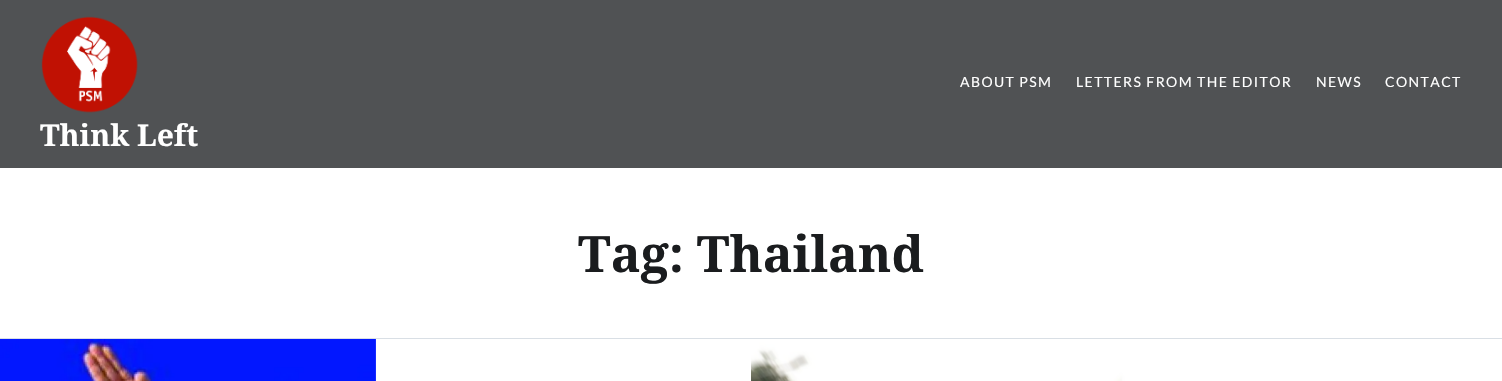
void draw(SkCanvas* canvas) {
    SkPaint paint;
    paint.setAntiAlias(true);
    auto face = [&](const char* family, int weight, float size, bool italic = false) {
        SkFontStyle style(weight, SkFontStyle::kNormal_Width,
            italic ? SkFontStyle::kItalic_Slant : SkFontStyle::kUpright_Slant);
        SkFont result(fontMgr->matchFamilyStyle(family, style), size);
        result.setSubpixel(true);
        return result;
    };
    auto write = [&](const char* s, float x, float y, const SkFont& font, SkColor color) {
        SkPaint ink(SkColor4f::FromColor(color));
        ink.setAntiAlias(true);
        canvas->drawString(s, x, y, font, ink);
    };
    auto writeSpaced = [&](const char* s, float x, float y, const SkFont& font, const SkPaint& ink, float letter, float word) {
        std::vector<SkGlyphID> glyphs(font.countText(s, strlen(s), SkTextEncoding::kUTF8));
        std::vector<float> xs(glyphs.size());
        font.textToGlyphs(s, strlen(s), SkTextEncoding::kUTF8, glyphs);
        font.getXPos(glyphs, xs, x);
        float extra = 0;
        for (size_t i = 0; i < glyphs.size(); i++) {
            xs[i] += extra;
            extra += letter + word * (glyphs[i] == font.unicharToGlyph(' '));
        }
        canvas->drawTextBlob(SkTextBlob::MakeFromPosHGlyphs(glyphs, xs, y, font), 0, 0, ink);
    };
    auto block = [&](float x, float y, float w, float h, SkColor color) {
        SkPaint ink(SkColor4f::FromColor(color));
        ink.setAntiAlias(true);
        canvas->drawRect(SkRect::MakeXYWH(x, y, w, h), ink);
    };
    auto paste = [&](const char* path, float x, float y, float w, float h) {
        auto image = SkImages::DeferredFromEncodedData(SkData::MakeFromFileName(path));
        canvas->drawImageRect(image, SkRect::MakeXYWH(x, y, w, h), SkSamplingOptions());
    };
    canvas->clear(SK_ColorWHITE);
    block(0, 0, 1502, 168, SkColorSetRGB(80, 82, 84));
    auto kFont1 = face("Lato", 400, 14);
    paint.setColor(SK_ColorWHITE);
    writeSpaced("ABOUT PSM", 960, 87, kFont1, paint, 1.4f, 0);
    writeSpaced("LETTERS FROM THE EDITOR", 1076, 87, kFont1, paint, 1.4f, 0);
    writeSpaced("NEWS", 1316, 87, kFont1, paint, 1.4f, 0);
    writeSpaced("CONTACT", 1385, 87, kFont1, paint, 1.4f, 0);
    paste("pic1.png", 41, 16, 97, 97);
    auto kFont2 = face("Noto Serif", 700, 30);
    write("Think Left", 40, 146, kFont2, SK_ColorWHITE);
    block(0, 338, 1502, 1, SkColorSetRGB(217, 223, 229));
    auto kFont3 = face("Noto Serif", 700, 50);
    write("Tag: Thailand", 578, 272, kFont3, SkColorSetRGB(26, 28, 30));
    paste("pic2.png", 0, 339, 376, 42);
    paste("pic3.png", 751, 339, 376, 42);
}
